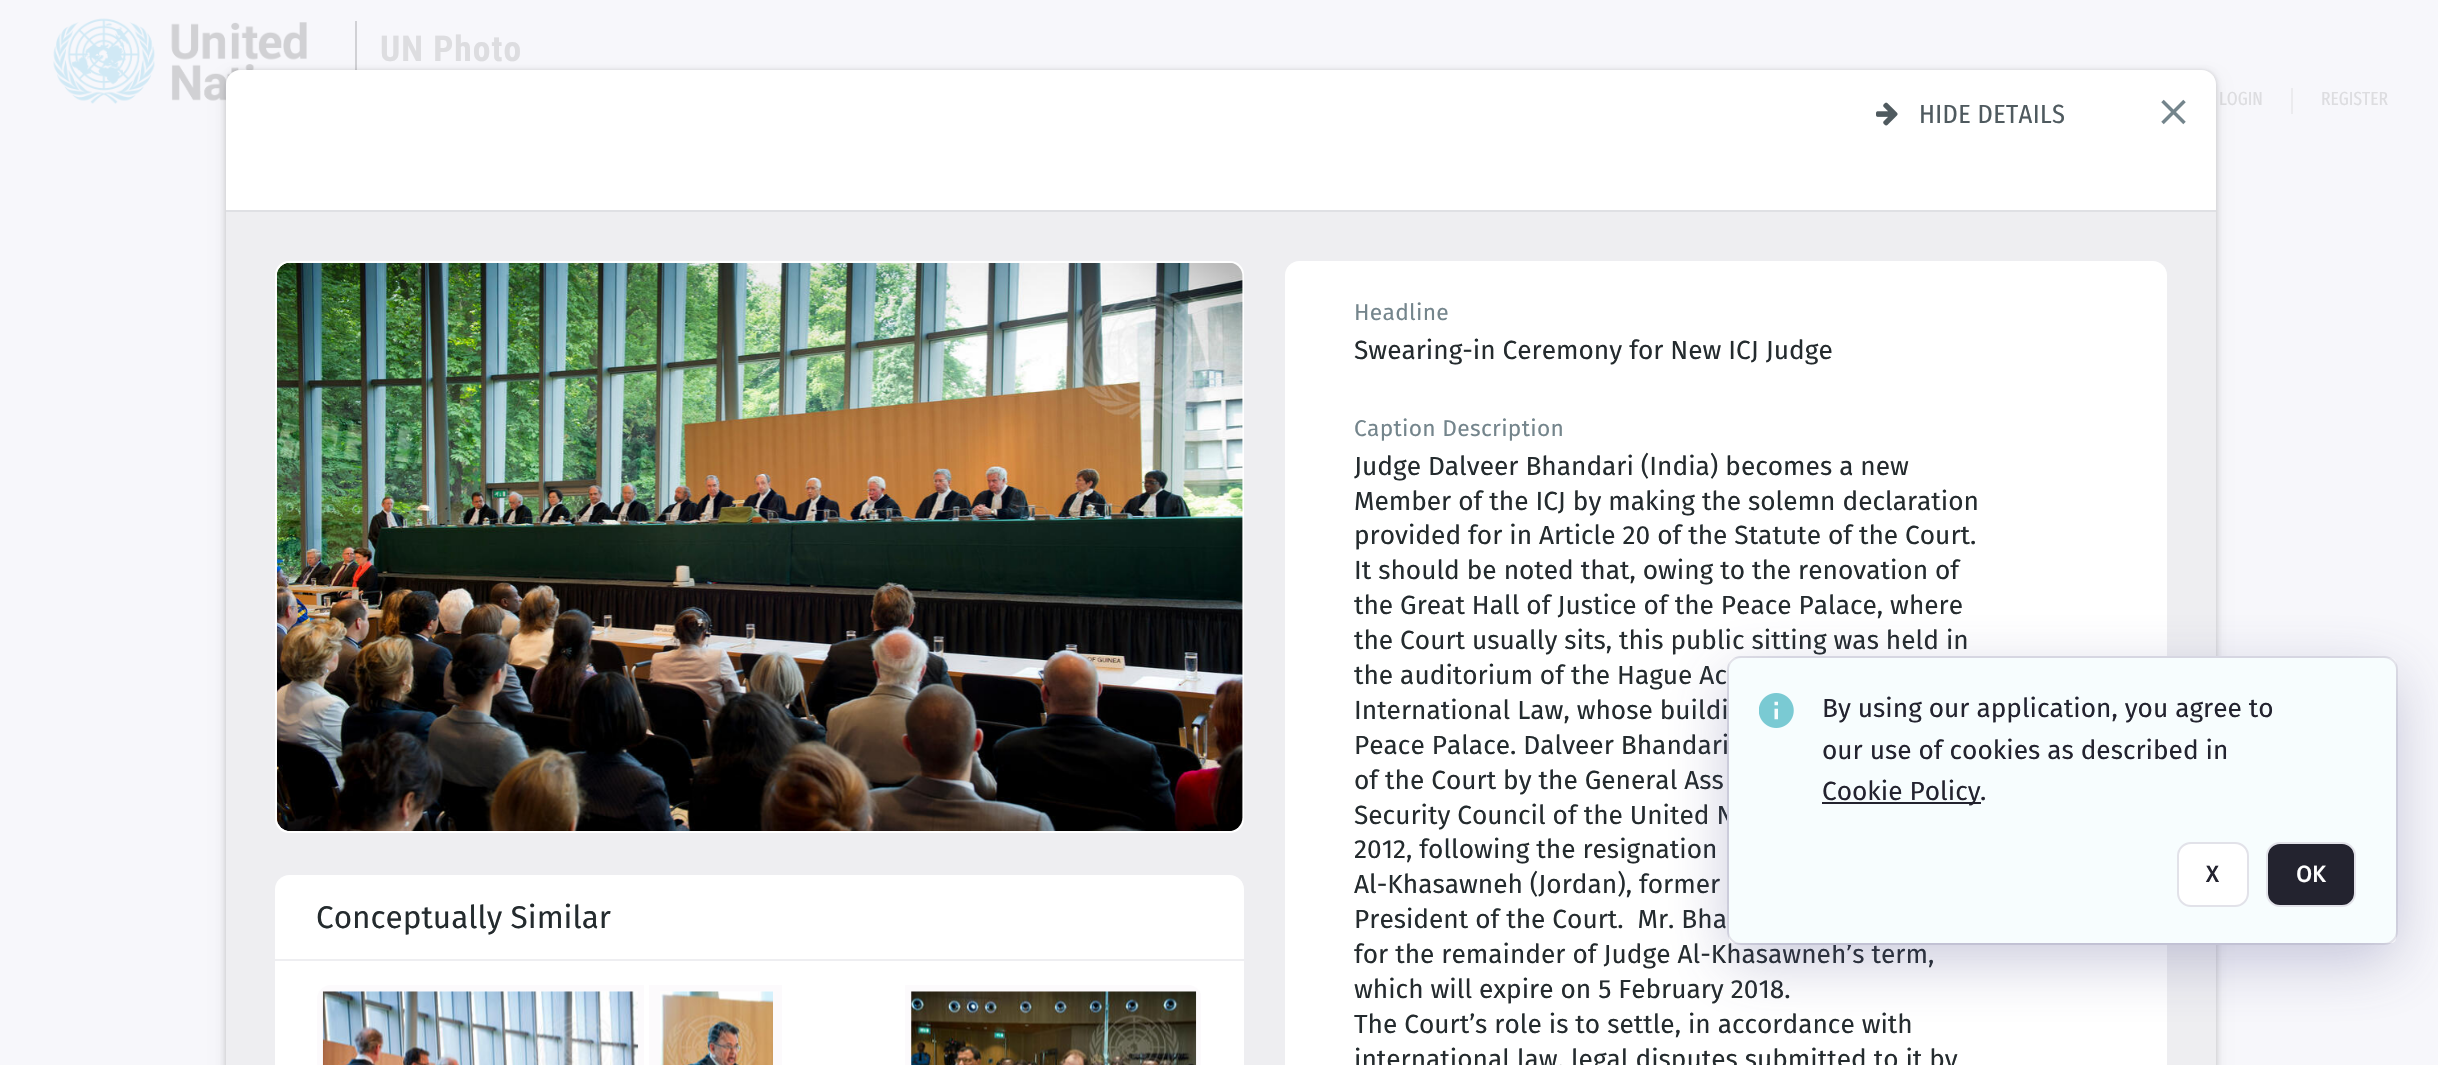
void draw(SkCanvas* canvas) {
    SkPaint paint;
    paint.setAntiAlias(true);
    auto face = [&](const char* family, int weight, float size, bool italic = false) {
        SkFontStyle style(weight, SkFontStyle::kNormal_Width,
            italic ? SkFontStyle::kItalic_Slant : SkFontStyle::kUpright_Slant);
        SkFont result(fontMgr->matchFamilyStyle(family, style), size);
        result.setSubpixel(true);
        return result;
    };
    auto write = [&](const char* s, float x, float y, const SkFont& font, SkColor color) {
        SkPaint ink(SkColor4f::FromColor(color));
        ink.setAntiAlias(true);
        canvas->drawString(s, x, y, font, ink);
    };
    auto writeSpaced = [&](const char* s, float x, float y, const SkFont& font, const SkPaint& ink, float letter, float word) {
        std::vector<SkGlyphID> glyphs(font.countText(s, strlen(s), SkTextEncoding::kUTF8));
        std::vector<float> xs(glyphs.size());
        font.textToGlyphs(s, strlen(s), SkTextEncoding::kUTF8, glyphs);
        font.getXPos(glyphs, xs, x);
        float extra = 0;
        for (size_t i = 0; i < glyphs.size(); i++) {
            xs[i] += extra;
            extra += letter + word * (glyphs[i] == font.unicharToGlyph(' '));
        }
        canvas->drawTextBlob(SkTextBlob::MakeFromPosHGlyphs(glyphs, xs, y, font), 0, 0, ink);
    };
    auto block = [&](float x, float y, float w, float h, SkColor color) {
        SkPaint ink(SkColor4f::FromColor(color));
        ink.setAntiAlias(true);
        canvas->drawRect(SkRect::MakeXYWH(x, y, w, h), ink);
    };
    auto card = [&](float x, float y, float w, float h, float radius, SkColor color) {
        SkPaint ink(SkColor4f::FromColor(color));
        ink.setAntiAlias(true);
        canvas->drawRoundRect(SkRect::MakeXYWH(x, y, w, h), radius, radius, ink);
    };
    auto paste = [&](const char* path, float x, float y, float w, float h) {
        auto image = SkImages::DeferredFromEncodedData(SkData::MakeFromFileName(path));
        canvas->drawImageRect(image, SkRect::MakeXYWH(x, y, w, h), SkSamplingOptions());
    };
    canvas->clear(SkColorSetRGB(247, 247, 251));
    paste("pic1.png", 53, 18, 254, 86);
    block(355, 21, 2, 49, SkColorSetRGB(209, 209, 213));
    auto kFont1 = face("Roboto Condensed", 700, 35.5f);
    paint.setColor(SkColorSetRGB(221, 221, 224));
    writeSpaced("UN Photo", 380, 61, kFont1, paint, 1, 0);
    auto kFont2 = face("Fira Sans Extra Condensed", 400, 19);
    write("LOGIN", 2219, 105, kFont2, SkColorSetRGB(221, 221, 224));
    block(2291, 88, 2, 26, SkColorSetRGB(235, 235, 238));
    write("REGISTER", 2321, 105, kFont2, SkColorSetRGB(221, 221, 224));
    paint.setColor(SkColorSetARGB(15, 0, 0, 0));
    paint.setMaskFilter(SkMaskFilter::MakeBlur(kNormal_SkBlurStyle, 2));
    canvas->drawRoundRect(SkRect::MakeXYWH(226, 70, 1990, 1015), 14, 14, paint);
    paint.setMaskFilter(nullptr);
    paint.setColor(SkColorSetARGB(20, 0, 0, 0));
    paint.setMaskFilter(SkMaskFilter::MakeBlur(kNormal_SkBlurStyle, 2.5f));
    canvas->drawRoundRect(SkRect::MakeXYWH(226, 70, 1990, 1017), 14, 14, paint);
    paint.setMaskFilter(nullptr);
    paint.setColor(SkColorSetARGB(15, 0, 0, 0));
    paint.setMaskFilter(SkMaskFilter::MakeBlur(kNormal_SkBlurStyle, 8));
    canvas->drawRoundRect(SkRect::MakeXYWH(226, 79, 1990, 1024), 14, 14, paint);
    paint.setMaskFilter(nullptr);
    paint.setMaskFilter(SkMaskFilter::MakeBlur(kNormal_SkBlurStyle, 4.5f));
    canvas->drawRoundRect(SkRect::MakeXYWH(226, 75, 1990, 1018), 14, 14, paint);
    paint.setMaskFilter(nullptr);
    paint.setColor(SK_ColorWHITE);
    canvas->drawPath(SkPathBuilder().moveTo(240, 70).lineTo(2202, 70).cubicTo(2209.5f, 70, 2216, 76.5f, 2216, 84).lineTo(2216, 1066).lineTo(226, 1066).lineTo(226, 84).cubicTo(226, 76.5f, 232.5f, 70, 240, 70).close().detach(), paint);
    paste("pic2.png", 1876, 102, 22, 24);
    auto kFont3 = face("Fira Sans Condensed", 400, 26.25f);
    paint.setColor(SkColorSetRGB(79, 90, 95));
    writeSpaced("HIDE DETAILS", 1919, 123, kFont3, paint, 0.4f, 0);
    block(226, 210, 1990, 2, SkColorSetRGB(223, 224, 228));
    block(226, 212, 1990, 853, SkColorSetRGB(238, 238, 241));
    card(275, 261, 969, 572, 14, SK_ColorWHITE);
    paste("pic3.png", 277, 263, 966, 568);
    paint.setColor(SK_ColorWHITE);
    canvas->drawPath(SkPathBuilder().moveTo(289, 875).lineTo(1230, 875).cubicTo(1237.5f, 875, 1244, 881.5f, 1244, 889).lineTo(1244, 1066).lineTo(275, 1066).lineTo(275, 889).cubicTo(275, 881.5f, 281.5f, 875, 289, 875).close().detach(), paint);
    auto kFont4 = face("Fira Sans", 400, 31.5f);
    write("Conceptually Similar", 316, 928, kFont4, SkColorSetRGB(36, 43, 46));
    paint.setColor(SkColorSetRGB(252, 250, 252));
    canvas->drawPath(SkPathBuilder().moveTo(331, 985).lineTo(644, 985).lineTo(644, 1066).lineTo(317, 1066).lineTo(317, 999).cubicTo(317, 991.5f, 323.5f, 985, 331, 985).close().detach(), paint);
    paste("pic4.png", 322, 991, 317, 74);
    block(649, 985, 133, 80, SkColorSetRGB(252, 250, 252));
    paste("pic5.png", 660, 991, 113, 74);
    canvas->save();
    canvas->clipPath(SkPathBuilder().moveTo(331, 985).lineTo(1188, 985).cubicTo(1195.5f, 985, 1202, 991.5f, 1202, 999).lineTo(1202, 1558).cubicTo(1202, 1565.5f, 1195.5f, 1572, 1188, 1572).lineTo(331, 1572).cubicTo(323.5f, 1572, 317, 1565.5f, 317, 1558).lineTo(317, 999).cubicTo(317, 991.5f, 323.5f, 985, 331, 985).close().detach(), true);
    block(905, 985, 296, 80, SkColorSetRGB(252, 250, 252));
    canvas->restore();
    paste("pic6.png", 911, 991, 286, 74);
    block(275, 959, 969, 2, SkColorSetRGB(238, 238, 241));
    paint.setColor(SK_ColorWHITE);
    canvas->drawPath(SkPathBuilder().moveTo(1299, 261).lineTo(2153, 261).cubicTo(2160.5f, 261, 2167, 267.5f, 2167, 275).lineTo(2167, 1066).lineTo(1285, 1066).lineTo(1285, 275).cubicTo(1285, 267.5f, 1291.5f, 261, 1299, 261).close().detach(), paint);
    auto kFont5 = face("Fira Sans", 400, 22.75f);
    paint.setColor(SkColorSetRGB(116, 133, 140));
    writeSpaced("Headline", 1354, 320, kFont5, paint, 0.3f, 0);
    auto kFont6 = face("Fira Sans", 400, 26.25f);
    write("Swearing-in Ceremony for New ICJ Judge", 1354, 359, kFont6, SkColorSetRGB(36, 43, 46));
    writeSpaced("Caption Description", 1354, 436, kFont5, paint, 0.3f, 0);
    write("Judge Dalveer Bhandari (India) becomes a new", 1354, 475, kFont6, SkColorSetRGB(36, 43, 46));
    write("Member of the ICJ by making the solemn declaration", 1354, 510, kFont6, SkColorSetRGB(36, 43, 46));
    write("provided for in Article 20 of the Statute of the Court.", 1354, 544, kFont6, SkColorSetRGB(36, 43, 46));
    write("It should be noted that, owing to the renovation of", 1354, 579, kFont6, SkColorSetRGB(36, 43, 46));
    write("the Great Hall of Justice of the Peace Palace, where", 1354, 614, kFont6, SkColorSetRGB(36, 43, 46));
    write("the Court usually sits, this public sitting was held in", 1354, 649, kFont6, SkColorSetRGB(36, 43, 46));
    write("the auditorium of the Hague Ac", 1354, 684, kFont6, SkColorSetRGB(36, 43, 46));
    write("International Law, whose buildi", 1354, 719, kFont6, SkColorSetRGB(36, 43, 46));
    write("Peace Palace. Dalveer Bhandari", 1354, 754, kFont6, SkColorSetRGB(36, 43, 46));
    write("of the Court by the General Ass", 1354, 789, kFont6, SkColorSetRGB(36, 43, 46));
    write("Security Council of the United N", 1354, 824, kFont6, SkColorSetRGB(36, 43, 46));
    write("2012, following the resignation", 1354, 858, kFont6, SkColorSetRGB(36, 43, 46));
    write("Al-Khasawneh (Jordan), former", 1354, 893, kFont6, SkColorSetRGB(36, 43, 46));
    write("President of the Court.  Mr. Bha", 1354, 928, kFont6, SkColorSetRGB(36, 43, 46));
    write("for the remainder of Judge Al-Khasawneh’s term,", 1354, 963, kFont6, SkColorSetRGB(36, 43, 46));
    write("which will expire on 5 February 2018.", 1354, 998, kFont6, SkColorSetRGB(36, 43, 46));
    write("The Court’s role is to settle, in accordance with", 1354, 1033, kFont6, SkColorSetRGB(36, 43, 46));
    write("international law, legal disputes submitted to it by", 1354, 1068, kFont6, SkColorSetRGB(36, 43, 46));
    paste("pic7.png", 2161, 99, 25, 26);
    paint.setColor(SkColorSetRGB(247, 253, 254));
    canvas->drawRoundRect(SkRect::MakeXYWH(1728, 657, 669, 287), 13, 13, paint);
    paint.setStyle(SkPaint::kStroke_Style);
    paint.setStrokeWidth(2);
    paint.setColor(SkColorSetRGB(226, 226, 233));
    canvas->drawRoundRect(SkRect::MakeXYWH(1728, 657, 669, 287), 13, 13, paint);
    canvas->save();
    canvas->clipPath(SkPathBuilder(SkPathFillType::kEvenOdd).moveTo(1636, 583).lineTo(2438, 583).lineTo(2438, 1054).lineTo(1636, 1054).close().moveTo(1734, 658).lineTo(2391, 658).cubicTo(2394, 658, 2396, 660, 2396, 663).lineTo(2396, 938).cubicTo(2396, 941, 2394, 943, 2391, 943).lineTo(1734, 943).cubicTo(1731, 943, 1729, 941, 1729, 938).lineTo(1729, 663).cubicTo(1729, 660, 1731, 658, 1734, 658).close().detach(), true);
    paint.setStyle(SkPaint::kFill_Style);
    paint.setColor(SkColorSetARGB(77, 77, 77, 135));
    paint.setMaskFilter(SkMaskFilter::MakeBlur(kNormal_SkBlurStyle, 30.5f));
    canvas->drawRoundRect(SkRect::MakeXYWH(1729, 676, 667, 285), 5, 5, paint);
    paint.setMaskFilter(nullptr);
    canvas->restore();
    paste("pic8.png", 1759, 693, 35, 35);
    write("By using our application, you agree to", 1822, 717, kFont6, SkColorSetRGB(35, 35, 47));
    write("our use of cookies as described in", 1822, 759, kFont6, SkColorSetRGB(35, 35, 47));
    block(1822, 802, 159, 2, SkColorSetRGB(35, 35, 47));
    write("Cookie Policy", 1822, 800, kFont6, SkColorSetRGB(35, 35, 47));
    write(".", 1980, 800, kFont6, SkColorSetRGB(35, 35, 47));
    paint.setColor(SK_ColorWHITE);
    canvas->drawRoundRect(SkRect::MakeXYWH(2178, 843, 70, 63), 13, 13, paint);
    paint.setStyle(SkPaint::kStroke_Style);
    paint.setColor(SkColorSetRGB(226, 226, 233));
    canvas->drawRoundRect(SkRect::MakeXYWH(2178, 843, 70, 63), 13, 13, paint);
    auto kFont7 = face("Fira Sans", 700, 22.75f);
    write("X", 2206, 882, kFont7, SkColorSetRGB(35, 35, 47));
    paint.setStyle(SkPaint::kFill_Style);
    paint.setColor(SkColorSetRGB(35, 35, 47));
    canvas->drawRoundRect(SkRect::MakeXYWH(2267, 843, 88, 63), 13, 13, paint);
    paint.setStyle(SkPaint::kStroke_Style);
    paint.setColor(SkColorSetRGB(226, 226, 233));
    canvas->drawRoundRect(SkRect::MakeXYWH(2267, 843, 88, 63), 13, 13, paint);
    write("OK", 2296, 882, kFont7, SK_ColorWHITE);
}
